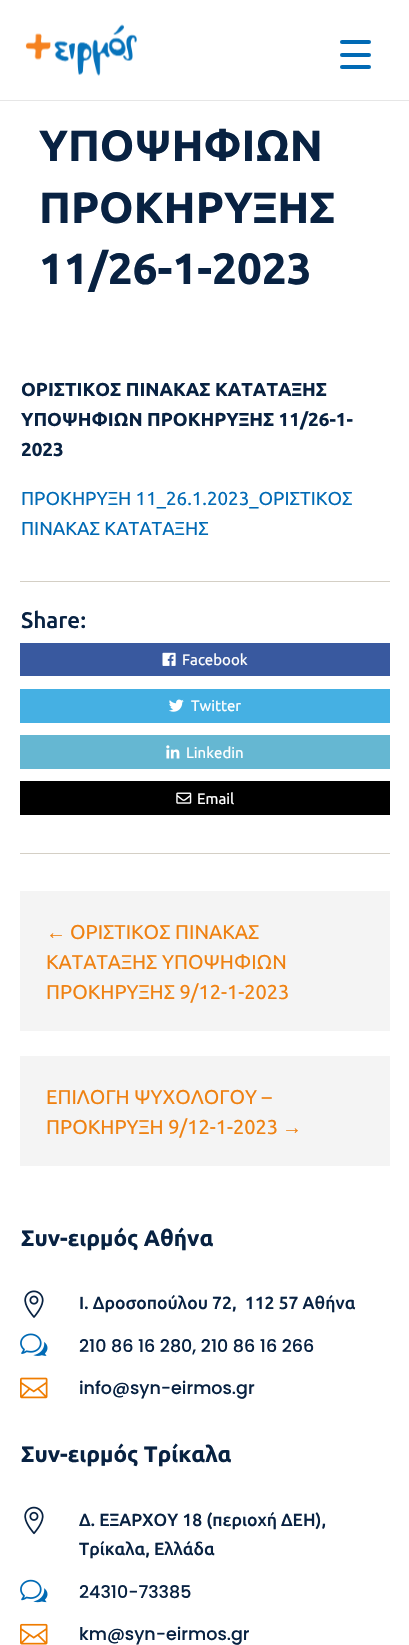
void draw(SkCanvas* canvas) {
    SkPaint paint;
    paint.setAntiAlias(true);
    auto face = [&](const char* family, int weight, float size, bool italic = false) {
        SkFontStyle style(weight, SkFontStyle::kNormal_Width,
            italic ? SkFontStyle::kItalic_Slant : SkFontStyle::kUpright_Slant);
        SkFont result(fontMgr->matchFamilyStyle(family, style), size);
        result.setSubpixel(true);
        return result;
    };
    auto write = [&](const char* s, float x, float y, const SkFont& font, SkColor color) {
        SkPaint ink(SkColor4f::FromColor(color));
        ink.setAntiAlias(true);
        canvas->drawString(s, x, y, font, ink);
    };
    auto block = [&](float x, float y, float w, float h, SkColor color) {
        SkPaint ink(SkColor4f::FromColor(color));
        ink.setAntiAlias(true);
        canvas->drawRect(SkRect::MakeXYWH(x, y, w, h), ink);
    };
    auto card = [&](float x, float y, float w, float h, float radius, SkColor color) {
        SkPaint ink(SkColor4f::FromColor(color));
        ink.setAntiAlias(true);
        canvas->drawRoundRect(SkRect::MakeXYWH(x, y, w, h), radius, radius, ink);
    };
    auto paste = [&](const char* path, float x, float y, float w, float h) {
        auto image = SkImages::DeferredFromEncodedData(SkData::MakeFromFileName(path));
        canvas->drawImageRect(image, SkRect::MakeXYWH(x, y, w, h), SkSamplingOptions());
    };
    canvas->clear(SK_ColorWHITE);
    card(340, 53, 31, 4, 2, SkColorSetRGB(0, 106, 181));
    card(340, 40, 31, 4, 2, SkColorSetRGB(0, 106, 181));
    card(340, 65, 31, 4, 2, SkColorSetRGB(0, 106, 181));
    block(0, 100, 409, 1, SkColorSetRGB(230, 230, 230));
    paste("pic1.png", 25, 24, 112, 52);
    auto kFont1 = face("Ubuntu", 700, 43.75f);
    write("ΥΠΟΨΗΦΙΩΝ", 39, 161, kFont1, SkColorSetRGB(8, 34, 66));
    write("ΠΡΟΚΗΡΥΞΗΣ", 39, 223, kFont1, SkColorSetRGB(8, 34, 66));
    write("11/26-1-2023", 39, 284, kFont1, SkColorSetRGB(8, 34, 66));
    auto kFont2 = face("Ubuntu", 700, 18.75f);
    write("ΟΡΙΣΤΙΚΟΣ ΠΙΝΑΚΑΣ ΚΑΤΑΤΑΞΗΣ", 21, 396, kFont2, SkColorSetRGB(8, 34, 66));
    write("ΥΠΟΨΗΦΙΩΝ ΠΡΟΚΗΡΥΞΗΣ 11/26-1-", 21, 426, kFont2, SkColorSetRGB(8, 34, 66));
    write("2023", 21, 456, kFont2, SkColorSetRGB(8, 34, 66));
    auto kFont3 = face("Ubuntu", 400, 18.75f);
    write("ΠΡΟΚΗΡΥΞΗ 11_26.1.2023_ΟΡΙΣΤΙΚΟΣ", 21, 505, kFont3, SkColorSetRGB(0, 106, 181));
    write("ΠΙΝΑΚΑΣ ΚΑΤΑΤΑΞΗΣ", 21, 535, kFont3, SkColorSetRGB(0, 106, 181));
    block(20, 581, 370, 1, SkColorSetRGB(212, 207, 197));
    block(20, 853, 370, 1, SkColorSetRGB(212, 207, 197));
    auto kFont4 = face("Ubuntu", 500, 22.5f);
    write("Share:", 21, 628, kFont4, SkColorSetRGB(8, 34, 66));
    block(20, 643, 370, 33, SkColorSetRGB(57, 89, 159));
    paste("pic2.png", 162, 652, 14, 14);
    auto kFont5 = face("Ubuntu", 400, 15);
    write("Facebook", 182, 665, kFont5, SK_ColorWHITE);
    block(20, 689, 370, 34, SkColorSetRGB(69, 176, 227));
    paste("pic3.png", 169, 699, 15, 13);
    write("Twitter", 191, 711, kFont5, SK_ColorWHITE);
    block(20, 735, 370, 34, SkColorSetRGB(101, 183, 210));
    paste("pic4.png", 166, 745, 14, 14);
    write("Linkedin", 186, 758, kFont5, SK_ColorWHITE);
    block(20, 781, 370, 34, SK_ColorBLACK);
    paste("pic5.png", 176, 792, 16, 12);
    write("Email", 197, 804, kFont5, SK_ColorWHITE);
    block(20, 891, 370, 140, SkColorSetRGB(244, 244, 244));
    auto kFont6 = face("Liberation Sans", 400, 20);
    write("←", 46, 939, kFont6, SkColorSetRGB(239, 129, 17));
    auto kFont7 = face("Ubuntu", 400, 20);
    write("ΟΡΙΣΤΙΚΟΣ ΠΙΝΑΚΑΣ", 70, 939, kFont7, SkColorSetRGB(239, 129, 17));
    write("ΚΑΤΑΤΑΞΗΣ ΥΠΟΨΗΦΙΩΝ", 46, 969, kFont7, SkColorSetRGB(239, 129, 17));
    write("ΠΡΟΚΗΡΥΞΗΣ 9/12-1-2023", 46, 999, kFont7, SkColorSetRGB(239, 129, 17));
    block(20, 1056, 370, 110, SkColorSetRGB(244, 244, 244));
    write("ΕΠΙΛΟΓΗ ΨΥΧΟΛΟΓΟΥ –", 46, 1104, kFont7, SkColorSetRGB(239, 129, 17));
    write("ΠΡΟΚΗΡΥΞΗ 9/12-1-2023", 46, 1134, kFont7, SkColorSetRGB(239, 129, 17));
    write("→", 282, 1134, kFont6, SkColorSetRGB(239, 129, 17));
    auto kFont8 = face("Ubuntu", 700, 22.5f);
    write("Συν-ειρμός Αθήνα", 21, 1246, kFont8, SkColorSetRGB(8, 34, 66));
    paste("pic6.png", 24, 1290, 20, 28);
    auto kFont9 = face("Ubuntu", 500, 17.5f);
    write("Ι. Δροσοπούλου 72,  112 57 Αθήνα", 79, 1309, kFont9, SkColorSetRGB(8, 34, 66));
    paste("pic7.png", 20, 1333, 28, 23);
    auto kFont10 = face("Poppins", 500, 17.5f);
    write("210 86 16 280, 210 86 16 266", 79, 1352, kFont10, SkColorSetRGB(8, 34, 66));
    paste("pic8.png", 20, 1377, 28, 22);
    write("info@syn-eirmos.gr", 79, 1394, kFont10, SkColorSetRGB(8, 34, 66));
    write("Συν-ειρμός Τρίκαλα", 21, 1462, kFont8, SkColorSetRGB(8, 34, 66));
    paste("pic9.png", 24, 1506, 20, 29);
    write("Δ. ΕΞΑΡΧΟΥ 18 (περιοχή ΔΕΗ),", 79, 1526, kFont9, SkColorSetRGB(8, 34, 66));
    write("Τρίκαλα, Ελλάδα", 79, 1555, kFont9, SkColorSetRGB(8, 34, 66));
    paste("pic10.png", 20, 1579, 28, 24);
    write("24310-73385", 79, 1598, kFont10, SkColorSetRGB(8, 34, 66));
    paste("pic11.png", 20, 1623, 28, 22);
    write("km@syn-eirmos.gr", 79, 1640, kFont10, SkColorSetRGB(8, 34, 66));
}
